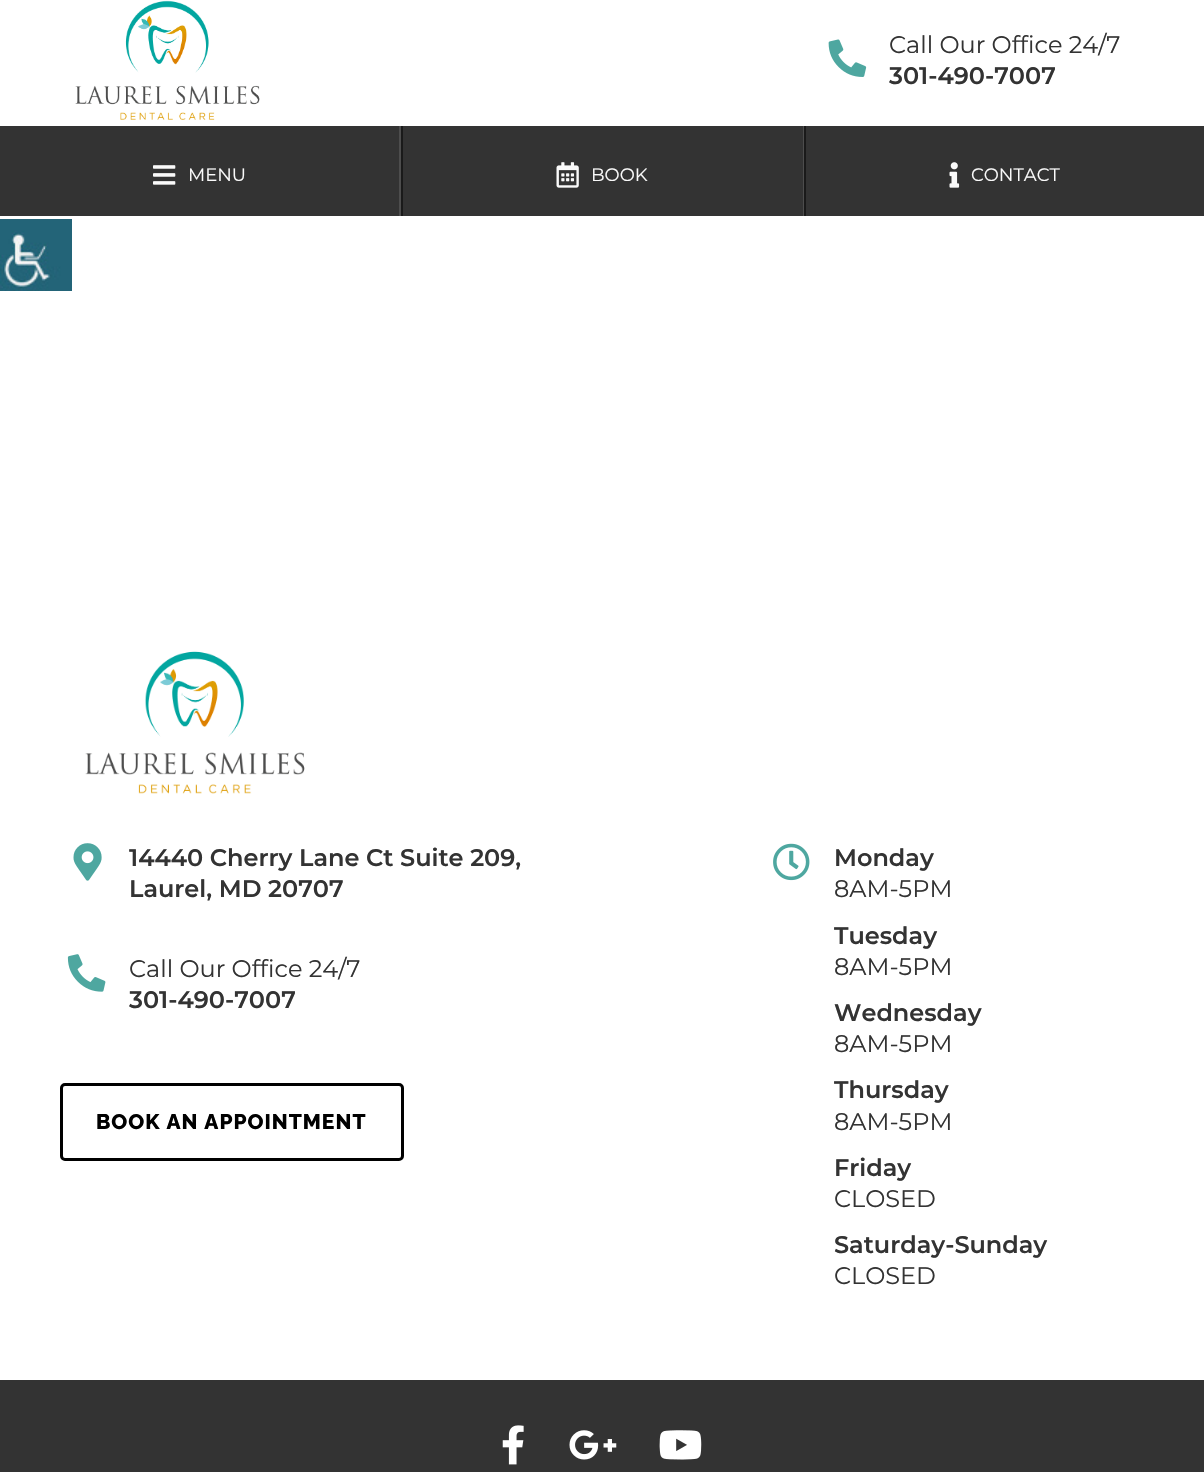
void draw(SkCanvas* canvas) {
    SkPaint paint;
    paint.setAntiAlias(true);
    auto face = [&](const char* family, int weight, float size, bool italic = false) {
        SkFontStyle style(weight, SkFontStyle::kNormal_Width,
            italic ? SkFontStyle::kItalic_Slant : SkFontStyle::kUpright_Slant);
        SkFont result(fontMgr->matchFamilyStyle(family, style), size);
        result.setSubpixel(true);
        return result;
    };
    auto write = [&](const char* s, float x, float y, const SkFont& font, SkColor color) {
        SkPaint ink(SkColor4f::FromColor(color));
        ink.setAntiAlias(true);
        canvas->drawString(s, x, y, font, ink);
    };
    auto writeSpaced = [&](const char* s, float x, float y, const SkFont& font, const SkPaint& ink, float letter, float word) {
        std::vector<SkGlyphID> glyphs(font.countText(s, strlen(s), SkTextEncoding::kUTF8));
        std::vector<float> xs(glyphs.size());
        font.textToGlyphs(s, strlen(s), SkTextEncoding::kUTF8, glyphs);
        font.getXPos(glyphs, xs, x);
        float extra = 0;
        for (size_t i = 0; i < glyphs.size(); i++) {
            xs[i] += extra;
            extra += letter + word * (glyphs[i] == font.unicharToGlyph(' '));
        }
        canvas->drawTextBlob(SkTextBlob::MakeFromPosHGlyphs(glyphs, xs, y, font), 0, 0, ink);
    };
    auto block = [&](float x, float y, float w, float h, SkColor color) {
        SkPaint ink(SkColor4f::FromColor(color));
        ink.setAntiAlias(true);
        canvas->drawRect(SkRect::MakeXYWH(x, y, w, h), ink);
    };
    auto paste = [&](const char* path, float x, float y, float w, float h) {
        auto image = SkImages::DeferredFromEncodedData(SkData::MakeFromFileName(path));
        canvas->drawImageRect(image, SkRect::MakeXYWH(x, y, w, h), SkSamplingOptions());
    };
    canvas->clear(SK_ColorWHITE);
    paste("pic1.png", 75, 0, 185, 120);
    paste("pic2.png", 828, 39, 39, 38);
    auto kFont1 = face("Montserrat", 400, 24);
    write("Call Our Office 24/7", 889, 53, kFont1, SkColorSetRGB(51, 51, 51));
    auto kFont2 = face("Montserrat", 600, 24);
    write("301-490-7007", 889, 84, kFont2, SkColorSetRGB(51, 51, 51));
    block(0, 126, 1204, 90, SkColorSetRGB(51, 51, 51));
    block(399, 126, 2, 90, SkColorSetRGB(77, 77, 77));
    paste("pic3.png", 153, 165, 23, 20);
    auto kFont3 = face("Montserrat", 400, 18);
    write("MENU", 188, 181, kFont3, SkColorSetRGB(250, 250, 250));
    block(803, 126, 1, 90, SkColorSetRGB(77, 77, 77));
    block(401, 126, 2, 90, SkColorSetRGB(26, 26, 26));
    paste("pic4.png", 556, 162, 23, 26);
    write("BOOK", 591, 181, kFont3, SkColorSetRGB(250, 250, 250));
    block(804, 126, 2, 90, SkColorSetRGB(26, 26, 26));
    paste("pic5.png", 949, 162, 11, 26);
    write("CONTACT", 971, 181, kFont3, SkColorSetRGB(250, 250, 250));
    paste("pic6.png", 0, 219, 72, 72);
    paste("pic7.png", 85, 651, 220, 143);
    paste("pic8.png", 73, 843, 29, 38);
    write("14440 Cherry Lane Ct Suite 209,", 129, 866, kFont2, SkColorSetRGB(51, 51, 51));
    write("Laurel, MD 20707", 129, 897, kFont2, SkColorSetRGB(51, 51, 51));
    paste("pic9.png", 67, 954, 39, 38);
    write("Call Our Office 24/7", 129, 977, kFont1, SkColorSetRGB(51, 51, 51));
    write("301-490-7007", 129, 1008, kFont2, SkColorSetRGB(51, 51, 51));
    paint.setStyle(SkPaint::kStroke_Style);
    paint.setStrokeWidth(3);
    paint.setColor(SK_ColorBLACK);
    canvas->drawRoundRect(SkRect::MakeXYWH(61.5f, 1084.5f, 341, 75), 3.5f, 3.5f, paint);
    auto kFont4 = face("Raleway", 800, 21);
    paint.setStyle(SkPaint::kFill_Style);
    writeSpaced("BOOK AN APPOINTMENT", 96, 1129, kFont4, paint, 1, 0);
    paste("pic10.png", 773, 843, 37, 38);
    write("Monday", 834, 866, kFont2, SkColorSetRGB(51, 51, 51));
    write("8AM-5PM", 834, 897, kFont1, SkColorSetRGB(51, 51, 51));
    write("Tuesday", 834, 944, kFont2, SkColorSetRGB(51, 51, 51));
    write("8AM-5PM", 834, 975, kFont1, SkColorSetRGB(51, 51, 51));
    write("Wednesday", 834, 1021, kFont2, SkColorSetRGB(51, 51, 51));
    write("8AM-5PM", 834, 1052, kFont1, SkColorSetRGB(51, 51, 51));
    write("Thursday", 834, 1098, kFont2, SkColorSetRGB(51, 51, 51));
    write("8AM-5PM", 834, 1130, kFont1, SkColorSetRGB(51, 51, 51));
    write("Friday", 834, 1176, kFont2, SkColorSetRGB(51, 51, 51));
    write("CLOSED", 834, 1207, kFont1, SkColorSetRGB(51, 51, 51));
    write("Saturday-Sunday", 834, 1253, kFont2, SkColorSetRGB(51, 51, 51));
    write("CLOSED", 834, 1284, kFont1, SkColorSetRGB(51, 51, 51));
    block(0, 1380, 1204, 92, SkColorSetRGB(51, 51, 51));
    paste("pic11.png", 502, 1425, 22, 40);
    paste("pic12.png", 569, 1430, 48, 30);
    paste("pic13.png", 659, 1430, 43, 30);
}
